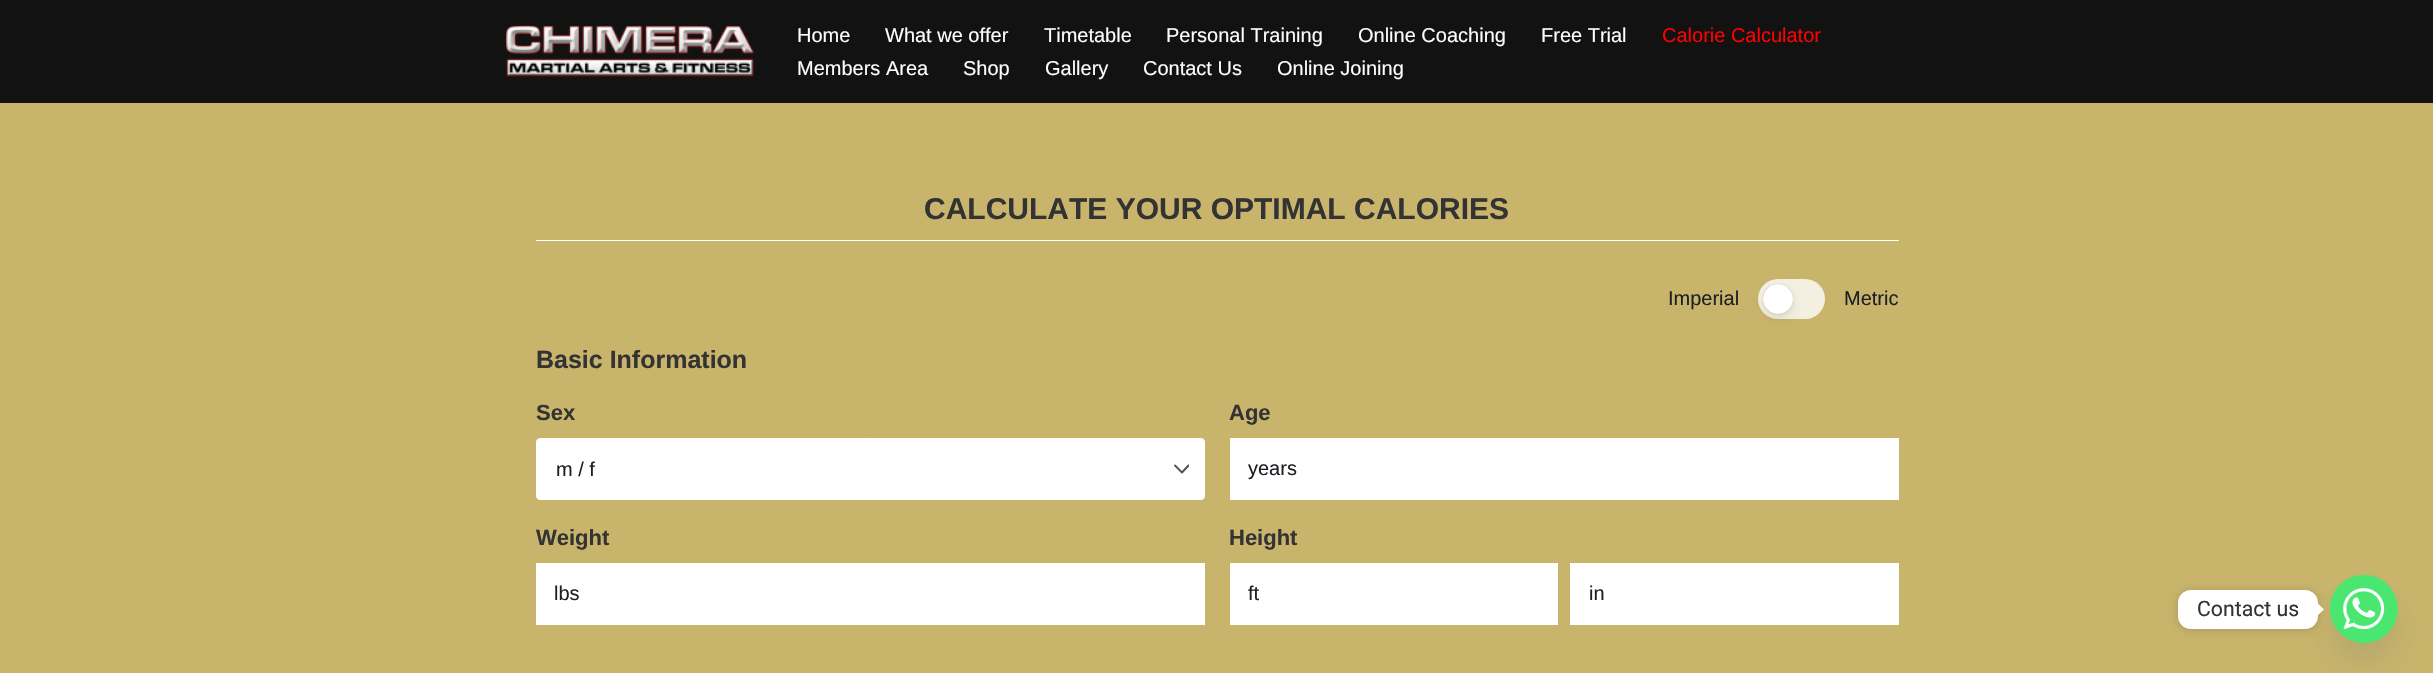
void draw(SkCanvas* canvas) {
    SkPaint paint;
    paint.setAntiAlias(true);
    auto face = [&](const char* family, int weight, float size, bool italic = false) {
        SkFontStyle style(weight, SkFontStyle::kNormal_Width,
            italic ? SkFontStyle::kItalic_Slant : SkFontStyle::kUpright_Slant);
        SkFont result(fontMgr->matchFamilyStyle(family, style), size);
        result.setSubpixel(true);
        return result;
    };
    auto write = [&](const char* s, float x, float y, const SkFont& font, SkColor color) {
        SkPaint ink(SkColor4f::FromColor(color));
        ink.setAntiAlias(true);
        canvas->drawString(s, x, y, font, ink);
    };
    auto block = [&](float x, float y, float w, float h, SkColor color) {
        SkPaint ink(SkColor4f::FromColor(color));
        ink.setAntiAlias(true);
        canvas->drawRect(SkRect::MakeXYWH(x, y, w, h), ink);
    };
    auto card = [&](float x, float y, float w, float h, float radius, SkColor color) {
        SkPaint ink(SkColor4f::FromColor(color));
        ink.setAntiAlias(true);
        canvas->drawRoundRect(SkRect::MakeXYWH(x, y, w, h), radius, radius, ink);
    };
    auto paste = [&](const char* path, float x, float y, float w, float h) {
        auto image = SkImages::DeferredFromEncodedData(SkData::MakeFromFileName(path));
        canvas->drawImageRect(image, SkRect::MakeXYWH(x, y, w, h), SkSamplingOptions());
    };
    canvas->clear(SkColorSetRGB(18, 18, 18));
    paste("pic1.png", 505, 25, 249, 52);
    auto kFont1 = face("Liberation Sans", 400, 20);
    write("Home", 797, 42, kFont1, SkColorSetRGB(254, 254, 254));
    write("What we offer", 885, 42, kFont1, SkColorSetRGB(254, 254, 254));
    write("Timetable", 1044, 42, kFont1, SkColorSetRGB(254, 254, 254));
    write("Personal Training", 1166, 42, kFont1, SkColorSetRGB(254, 254, 254));
    write("Online Coaching", 1358, 42, kFont1, SkColorSetRGB(254, 254, 254));
    write("Free Trial", 1541, 42, kFont1, SkColorSetRGB(254, 254, 254));
    write("Calorie Calculator", 1662, 42, kFont1, SkColorSetRGB(255, 0, 0));
    write("Members Area", 797, 75, kFont1, SkColorSetRGB(254, 254, 254));
    write("Shop", 963, 75, kFont1, SkColorSetRGB(254, 254, 254));
    write("Gallery", 1045, 75, kFont1, SkColorSetRGB(254, 254, 254));
    write("Contact Us", 1143, 75, kFont1, SkColorSetRGB(254, 254, 254));
    write("Online Joining", 1277, 75, kFont1, SkColorSetRGB(254, 254, 254));
    block(0, 103, 2433, 570, SkColorSetRGB(201, 180, 107));
    block(536, 240, 1363, 1, SK_ColorWHITE);
    auto kFont2 = face("Liberation Sans", 700, 30);
    write("CALCULATE YOUR OPTIMAL CALORIES", 924, 219, kFont2, SkColorSetRGB(51, 51, 51));
    write("Imperial", 1668, 305, kFont1, SkColorSetRGB(28, 31, 35));
    card(1758, 279, 67, 40, 20, SkColorSetRGB(244, 240, 225));
    paint.setColor(SkColorSetARGB(77, 0, 0, 0));
    paint.setMaskFilter(SkMaskFilter::MakeBlur(kNormal_SkBlurStyle, 0.5f));
    canvas->drawRoundRect(SkRect::MakeXYWH(1763, 284, 30, 30), 15, 15, paint);
    paint.setMaskFilter(nullptr);
    paint.setColor(SkColorSetARGB(26, 0, 0, 0));
    paint.setMaskFilter(SkMaskFilter::MakeBlur(kNormal_SkBlurStyle, 4));
    canvas->drawRoundRect(SkRect::MakeXYWH(1763, 289, 30, 30), 15, 15, paint);
    paint.setMaskFilter(nullptr);
    paint.setColor(SK_ColorWHITE);
    canvas->drawCircle(1778, 299, 15, paint);
    write("Metric", 1844, 305, kFont1, SkColorSetRGB(28, 31, 35));
    auto kFont3 = face("Liberation Sans", 700, 25);
    write("Basic Information", 536, 368, kFont3, SkColorSetRGB(51, 51, 51));
    auto kFont4 = face("Liberation Sans", 700, 22);
    write("Sex", 536, 420, kFont4, SkColorSetRGB(51, 51, 51));
    canvas->drawRoundRect(SkRect::MakeXYWH(536.5f, 438.5f, 668, 61), 3.5f, 3.5f, paint);
    paint.setStyle(SkPaint::kStroke_Style);
    paint.setStrokeWidth(1);
    canvas->drawRoundRect(SkRect::MakeXYWH(536.5f, 438.5f, 668, 61), 3.5f, 3.5f, paint);
    write("m / f", 556, 476, kFont1, SkColorSetRGB(28, 31, 35));
    canvas->save();
    canvas->clipRect(SkRect::MakeXYWH(1174, 464, 15, 10));
    paint.setStrokeWidth(2);
    paint.setStrokeCap(SkPaint::kRound_Cap);
    paint.setStrokeJoin(SkPaint::kRound_Join);
    paint.setColor(SkColorSetRGB(85, 85, 85));
    canvas->drawPath(SkPathBuilder().moveTo(1175, 465.5f).lineTo(1182, 472.5f).lineTo(1188.5f, 465.5f).detach(), paint);
    canvas->restore();
    write("Age", 1229, 420, kFont4, SkColorSetRGB(51, 51, 51));
    block(1230, 438, 669, 62, SK_ColorWHITE);
    write("years", 1248, 475, kFont1, SkColorSetRGB(28, 31, 35));
    write("Weight", 536, 545, kFont4, SkColorSetRGB(51, 51, 51));
    block(536, 563, 669, 62, SK_ColorWHITE);
    write("lbs", 554, 600, kFont1, SkColorSetRGB(28, 31, 35));
    write("Height", 1229, 545, kFont4, SkColorSetRGB(51, 51, 51));
    block(1230, 563, 328, 62, SK_ColorWHITE);
    write("ft", 1248, 600, kFont1, SkColorSetRGB(28, 31, 35));
    block(1570, 563, 329, 62, SK_ColorWHITE);
    write("in", 1589, 600, kFont1, SkColorSetRGB(28, 31, 35));
    paint.setStyle(SkPaint::kFill_Style);
    paint.setColor(SkColorSetARGB(41, 73, 104, 126));
    paint.setMaskFilter(SkMaskFilter::MakeBlur(kNormal_SkBlurStyle, 15));
    canvas->drawRoundRect(SkRect::MakeXYWH(2330, 595, 68, 68), 34, 34, paint);
    paint.setMaskFilter(nullptr);
    paint.setColor(SkColorSetRGB(73, 230, 112));
    canvas->drawCircle(2364, 609, 34, paint);
    paste("pic2.png", 2330, 575, 55, 55);
    paint.setColor(SkColorSetARGB(38, 0, 0, 0));
    paint.setMaskFilter(SkMaskFilter::MakeBlur(kNormal_SkBlurStyle, 5));
    canvas->drawRoundRect(SkRect::MakeXYWH(2178, 591, 140, 39), 13, 13, paint);
    paint.setMaskFilter(nullptr);
    card(2178, 590, 140, 39, 13, SK_ColorWHITE);
    auto kFont5 = face("Roboto", 400, 21.25f);
    write("Contact us", 2197, 616, kFont5, SkColorSetRGB(51, 51, 51));
    paint.setColor(SK_ColorWHITE);
    canvas->drawPath(SkPathBuilder().moveTo(2317.5f, 615.5f).lineTo(2317.5f, 603).lineTo(2324, 609.5f).close().detach(), paint);
}
